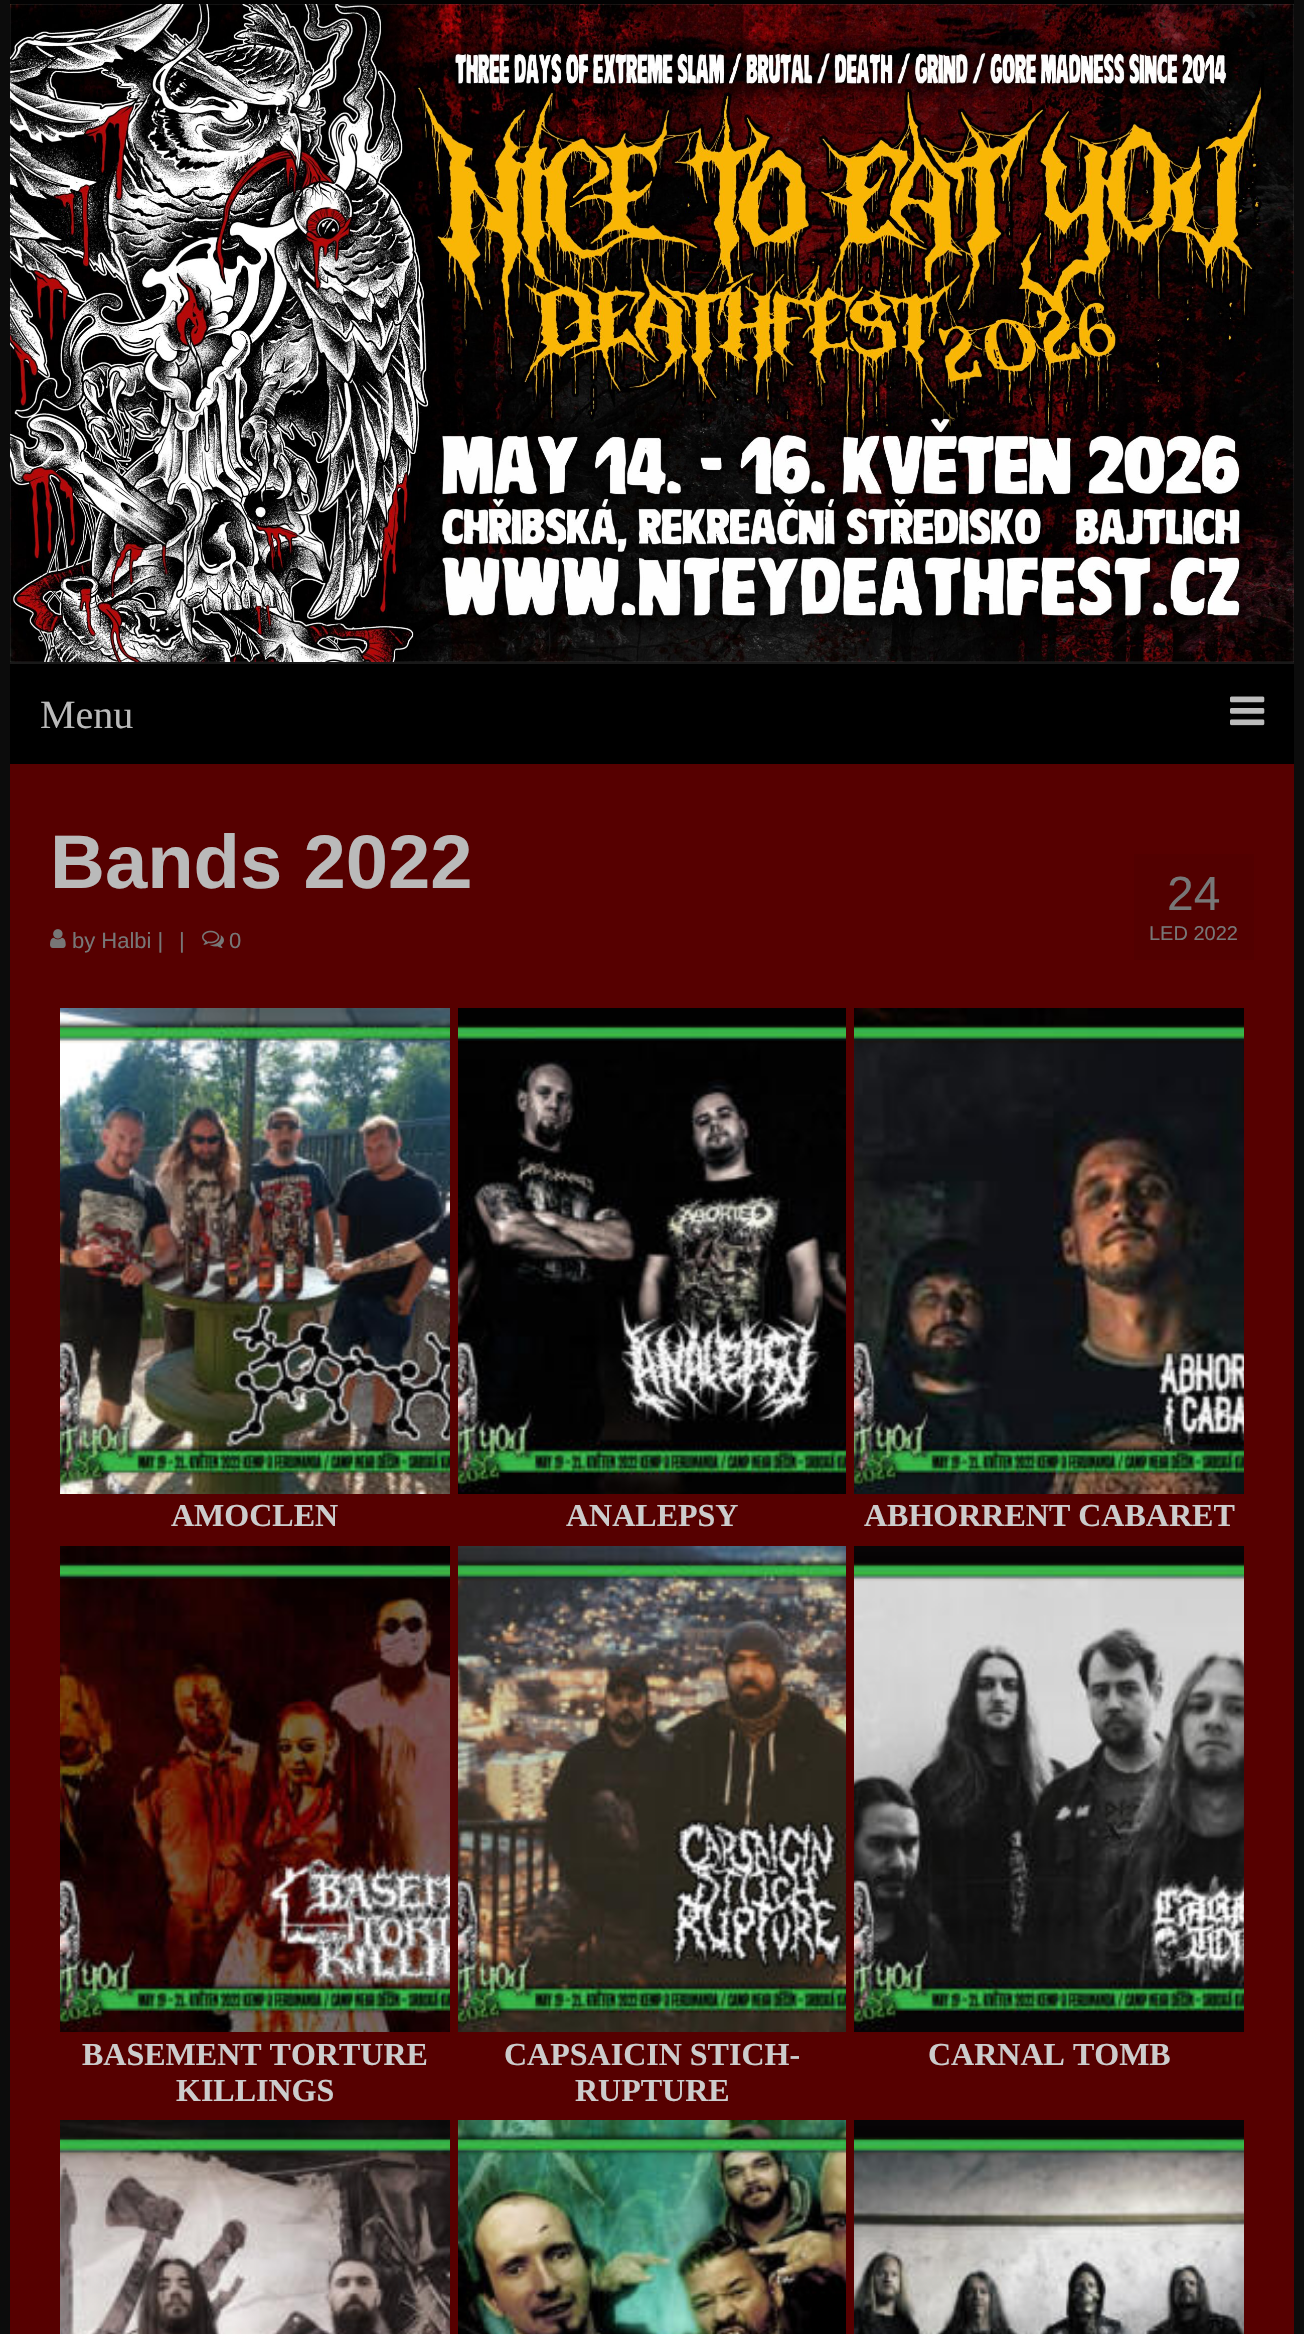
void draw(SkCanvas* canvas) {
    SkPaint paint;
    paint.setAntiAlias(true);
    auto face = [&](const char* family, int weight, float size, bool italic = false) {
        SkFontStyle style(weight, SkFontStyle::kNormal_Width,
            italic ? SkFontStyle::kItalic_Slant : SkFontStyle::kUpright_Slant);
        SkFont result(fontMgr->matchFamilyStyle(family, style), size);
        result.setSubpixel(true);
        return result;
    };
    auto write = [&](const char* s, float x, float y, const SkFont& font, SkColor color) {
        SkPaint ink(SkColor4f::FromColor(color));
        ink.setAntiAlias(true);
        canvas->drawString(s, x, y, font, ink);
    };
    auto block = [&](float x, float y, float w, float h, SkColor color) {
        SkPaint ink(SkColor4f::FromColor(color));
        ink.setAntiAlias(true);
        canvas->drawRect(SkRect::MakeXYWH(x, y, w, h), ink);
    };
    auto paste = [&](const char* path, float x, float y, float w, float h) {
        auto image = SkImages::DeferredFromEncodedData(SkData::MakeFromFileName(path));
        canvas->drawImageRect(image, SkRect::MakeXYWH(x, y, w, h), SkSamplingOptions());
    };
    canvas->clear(SkColorSetRGB(12, 12, 12));
    block(10, 662, 1284, 2, SkColorSetRGB(25, 25, 25));
    block(10, 0, 1284, 4, SkColorSetRGB(2, 2, 2));
    paste("pic1.png", 10, 4, 1284, 658);
    block(10, 664, 1284, 100, SK_ColorBLACK);
    auto kFont1 = face("Liberation Serif", 400, 40);
    write("Menu", 40, 728, kFont1, SkColorSetRGB(186, 186, 186));
    paste("pic2.png", 1230, 696, 35, 30);
    block(10, 764, 1284, 1570, SkColorSetRGB(86, 0, 0));
    auto kFont2 = face("Liberation Sans", 700, 76);
    write("Bands 2022", 50, 888, kFont2, SkColorSetRGB(186, 186, 186));
    paste("pic3.png", 50, 929, 16, 19);
    auto kFont3 = face("Liberation Sans", 400, 22);
    write("by Halbi |", 72, 948, kFont3, SkColorSetRGB(119, 119, 119));
    write("|", 179, 948, kFont3, SkColorSetRGB(119, 119, 119));
    paste("pic4.png", 202, 930, 22, 18);
    write("0", 229, 948, kFont3, SkColorSetRGB(119, 119, 119));
    block(1134, 854, 120, 106, SkColorSetRGB(82, 0, 0));
    auto kFont4 = face("Liberation Sans", 400, 48);
    write("24", 1167, 910, kFont4, SkColorSetRGB(119, 119, 119));
    auto kFont5 = face("Liberation Sans", 400, 20);
    write("LED 2022", 1149, 940, kFont5, SkColorSetRGB(119, 119, 119));
    paste("pic5.png", 60, 1008, 390, 486);
    auto kFont6 = face("Liberation Serif", 700, 32);
    write("AMOCLEN", 171, 1526, kFont6, SkColorSetRGB(204, 204, 204));
    paste("pic6.png", 458, 1008, 388, 486);
    write("ANALEPSY", 566, 1526, kFont6, SkColorSetRGB(204, 204, 204));
    paste("pic7.png", 854, 1008, 390, 486);
    write("ABHORRENT CABARET", 864, 1526, kFont6, SkColorSetRGB(204, 204, 204));
    paste("pic8.png", 60, 1546, 390, 486);
    write("BASEMENT TORTURE", 82, 2065, kFont6, SkColorSetRGB(204, 204, 204));
    write("KILLINGS", 176, 2101, kFont6, SkColorSetRGB(204, 204, 204));
    paste("pic9.png", 458, 1546, 388, 486);
    write("CAPSAICIN STICH-", 504, 2065, kFont6, SkColorSetRGB(204, 204, 204));
    write("RUPTURE", 575, 2101, kFont6, SkColorSetRGB(204, 204, 204));
    paste("pic10.png", 854, 1546, 390, 486);
    write("CARNAL TOMB", 928, 2065, kFont6, SkColorSetRGB(204, 204, 204));
    paste("pic11.png", 60, 2120, 390, 214);
    paste("pic12.png", 458, 2120, 388, 214);
    paste("pic13.png", 854, 2120, 390, 214);
}
